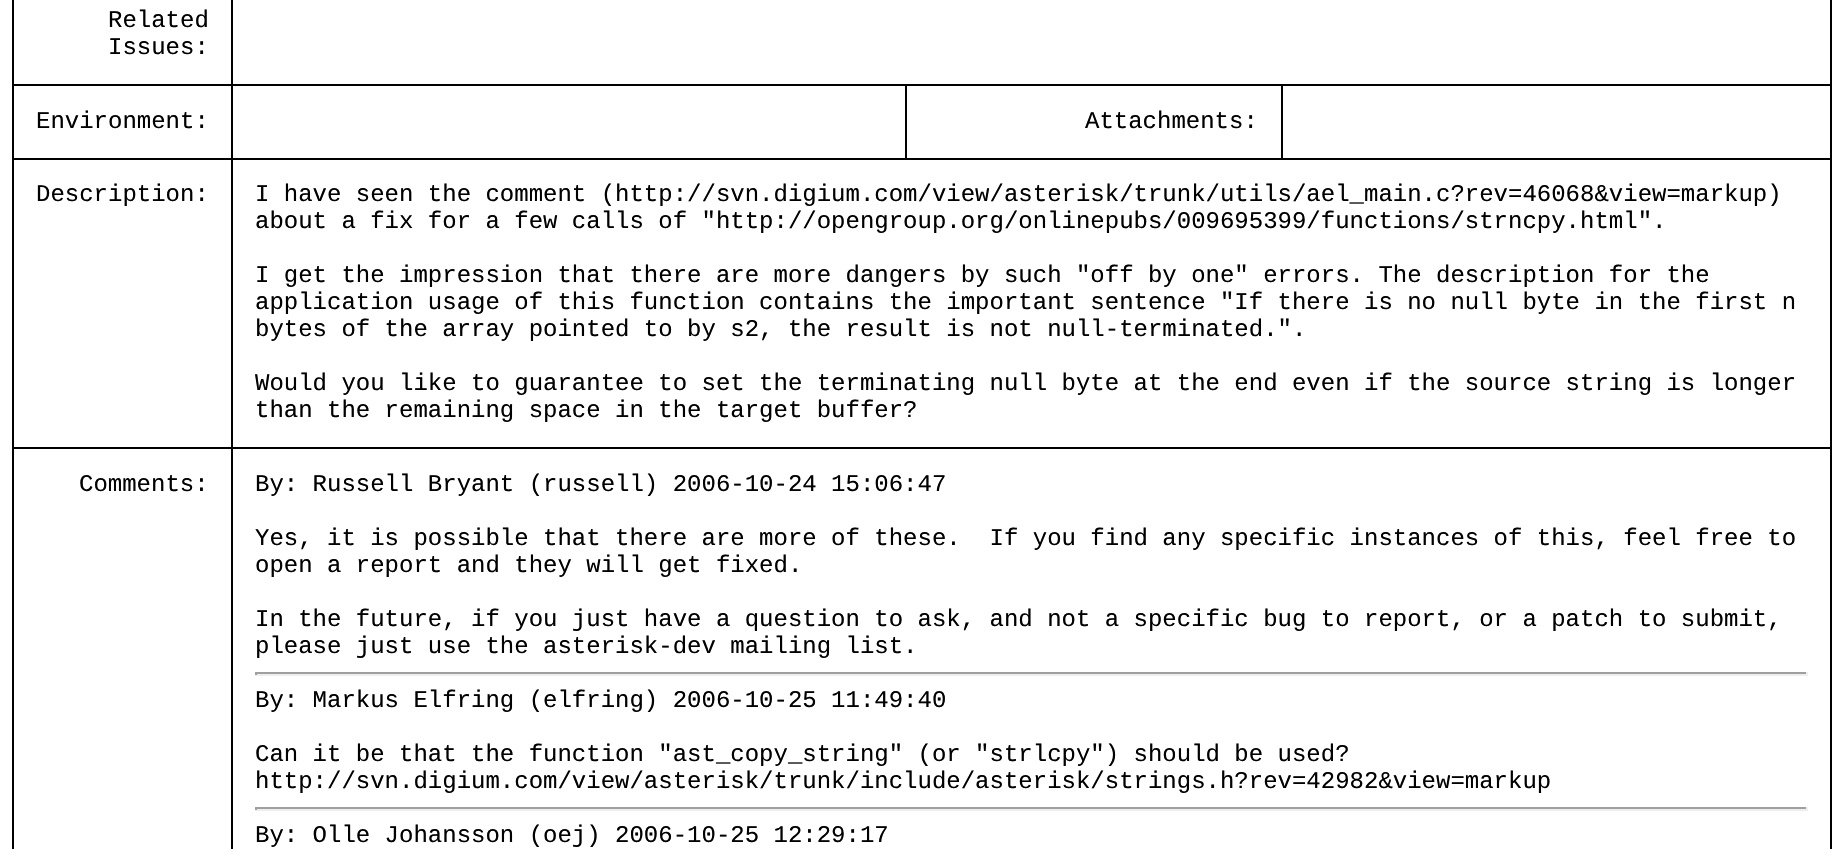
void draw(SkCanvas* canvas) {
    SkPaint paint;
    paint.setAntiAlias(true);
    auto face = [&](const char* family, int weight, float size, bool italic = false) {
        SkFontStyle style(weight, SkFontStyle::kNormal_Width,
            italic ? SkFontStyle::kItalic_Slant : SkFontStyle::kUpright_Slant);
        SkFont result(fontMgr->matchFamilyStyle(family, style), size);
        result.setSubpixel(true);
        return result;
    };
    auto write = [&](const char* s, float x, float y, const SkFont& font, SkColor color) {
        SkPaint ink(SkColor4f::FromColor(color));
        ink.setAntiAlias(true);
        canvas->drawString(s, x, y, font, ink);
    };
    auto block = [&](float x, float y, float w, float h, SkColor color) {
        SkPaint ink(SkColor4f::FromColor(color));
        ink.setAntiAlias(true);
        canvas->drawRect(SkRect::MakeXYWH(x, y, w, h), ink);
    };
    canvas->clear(SK_ColorWHITE);
    auto kFont1 = face("Liberation Mono", 400, 24);
    write("Related", 108, 27, kFont1, SK_ColorBLACK);
    write("Issues:", 108, 54, kFont1, SK_ColorBLACK);
    block(1281, 84, 551, 2, SK_ColorBLACK);
    block(231, 158, 1601, 2, SK_ColorBLACK);
    block(1281, 84, 2, 75, SK_ColorBLACK);
    block(905, 84, 378, 2, SK_ColorBLACK);
    block(905, 84, 2, 75, SK_ColorBLACK);
    block(231, 84, 675, 2, SK_ColorBLACK);
    block(231, 447, 1601, 2, SK_ColorBLACK);
    block(231, 447, 2, 402, SK_ColorBLACK);
    block(12, 447, 221, 2, SK_ColorBLACK);
    block(231, 158, 2, 291, SK_ColorBLACK);
    block(12, 158, 221, 2, SK_ColorBLACK);
    block(231, 84, 2, 75, SK_ColorBLACK);
    block(12, 84, 221, 2, SK_ColorBLACK);
    block(231, 0, 2, 86, SK_ColorBLACK);
    block(12, 447, 2, 402, SK_ColorBLACK);
    block(12, 158, 2, 291, SK_ColorBLACK);
    block(12, 0, 2, 159, SK_ColorBLACK);
    write("Environment:", 36, 128, kFont1, SK_ColorBLACK);
    write("Attachments:", 1085, 128, kFont1, SK_ColorBLACK);
    block(1830, 447, 2, 402, SK_ColorBLACK);
    block(1830, 158, 2, 291, SK_ColorBLACK);
    block(1830, 0, 2, 159, SK_ColorBLACK);
    write("Description:", 36, 201, kFont1, SK_ColorBLACK);
    write("I have seen the comment (http://svn.digium.com/view/asterisk/trunk/utils/ael_main.c?rev=46068&view=markup)", 255, 201, kFont1, SK_ColorBLACK);
    write("about a fix for a few calls of \"http://opengroup.org/onlinepubs/009695399/functions/strncpy.html\".", 255, 228, kFont1, SK_ColorBLACK);
    write("I get the impression that there are more dangers by such \"off by one\" errors. The description for the", 255, 282, kFont1, SK_ColorBLACK);
    write("application usage of this function contains the important sentence \"If there is no null byte in the first n", 255, 309, kFont1, SK_ColorBLACK);
    write("bytes of the array pointed to by s2, the result is not null-terminated.\".", 255, 336, kFont1, SK_ColorBLACK);
    write("Would you like to guarantee to set the terminating null byte at the end even if the source string is longer", 255, 390, kFont1, SK_ColorBLACK);
    write("than the remaining space in the target buffer?", 255, 417, kFont1, SK_ColorBLACK);
    write("Comments:", 79, 491, kFont1, SK_ColorBLACK);
    write("By: Russell Bryant (russell) 2006-10-24 15:06:47", 255, 491, kFont1, SK_ColorBLACK);
    write("Yes, it is possible that there are more of these.  If you find any specific instances of this, feel free to", 255, 545, kFont1, SK_ColorBLACK);
    write("open a report and they will get fixed.", 255, 572, kFont1, SK_ColorBLACK);
    write("In the future, if you just have a question to ask, and not a specific bug to report, or a patch to submit,", 255, 626, kFont1, SK_ColorBLACK);
    write("please just use the asterisk-dev mailing list.", 255, 653, kFont1, SK_ColorBLACK);
    block(255, 672, 1553, 2, SkColorSetRGB(159, 159, 159));
    block(1806, 672, 2, 3, SkColorSetRGB(238, 238, 238));
    block(255, 674, 1553, 2, SkColorSetRGB(238, 238, 238));
    block(255, 672, 2, 3, SkColorSetRGB(159, 159, 159));
    write("By: Markus Elfring (elfring) 2006-10-25 11:49:40", 255, 707, kFont1, SK_ColorBLACK);
    write("Can it be that the function \"ast_copy_string\" (or \"strlcpy\") should be used?", 255, 761, kFont1, SK_ColorBLACK);
    write("http://svn.digium.com/view/asterisk/trunk/include/asterisk/strings.h?rev=42982&view=markup", 255, 788, kFont1, SK_ColorBLACK);
    block(255, 807, 1553, 2, SkColorSetRGB(159, 159, 159));
    block(1806, 807, 2, 3, SkColorSetRGB(238, 238, 238));
    block(255, 809, 1553, 2, SkColorSetRGB(238, 238, 238));
    block(255, 807, 2, 3, SkColorSetRGB(159, 159, 159));
    write("By: Olle Johansson (oej) 2006-10-25 12:29:17", 255, 842, kFont1, SK_ColorBLACK);
}
